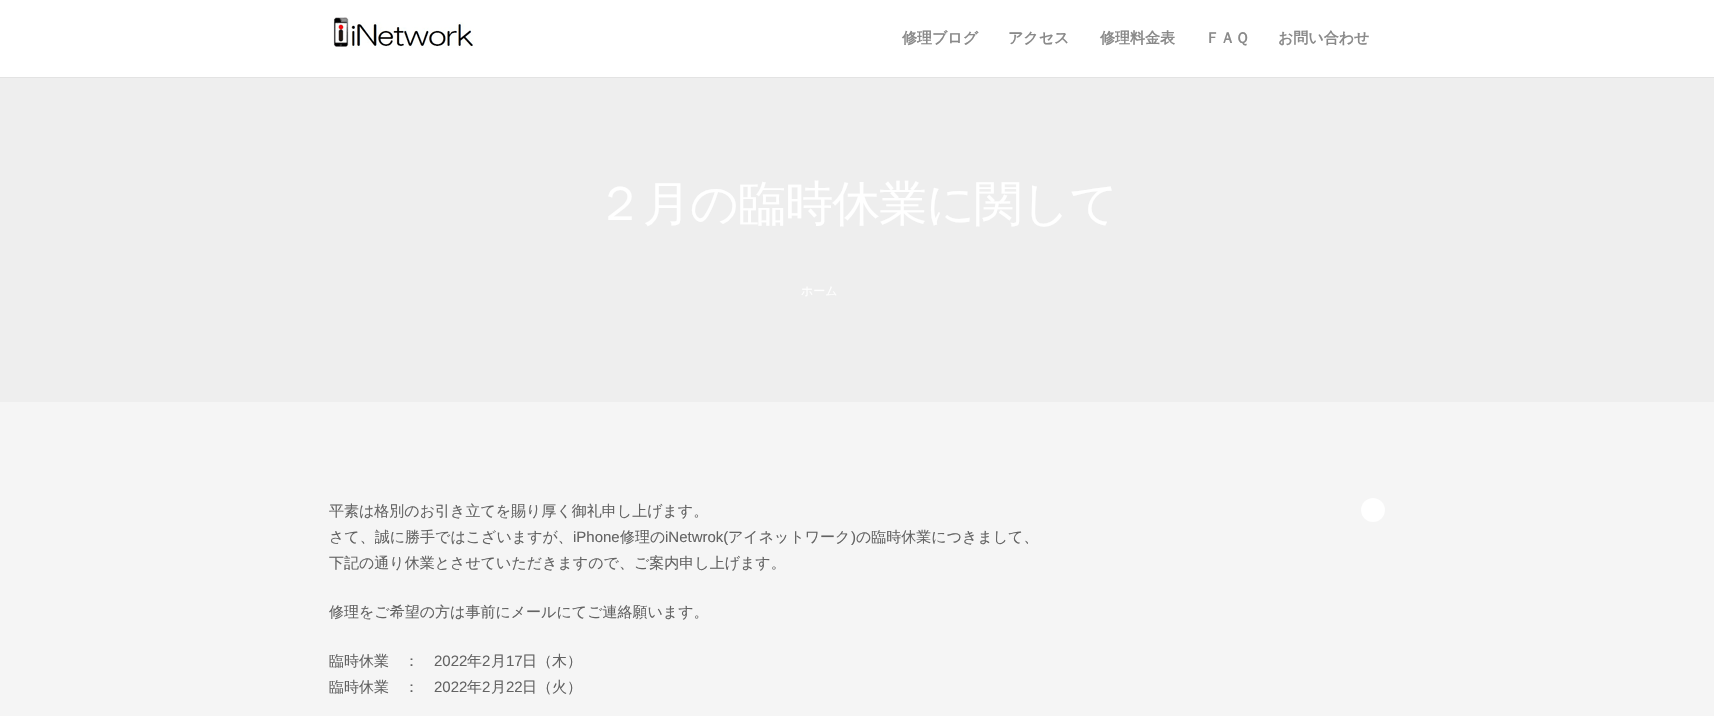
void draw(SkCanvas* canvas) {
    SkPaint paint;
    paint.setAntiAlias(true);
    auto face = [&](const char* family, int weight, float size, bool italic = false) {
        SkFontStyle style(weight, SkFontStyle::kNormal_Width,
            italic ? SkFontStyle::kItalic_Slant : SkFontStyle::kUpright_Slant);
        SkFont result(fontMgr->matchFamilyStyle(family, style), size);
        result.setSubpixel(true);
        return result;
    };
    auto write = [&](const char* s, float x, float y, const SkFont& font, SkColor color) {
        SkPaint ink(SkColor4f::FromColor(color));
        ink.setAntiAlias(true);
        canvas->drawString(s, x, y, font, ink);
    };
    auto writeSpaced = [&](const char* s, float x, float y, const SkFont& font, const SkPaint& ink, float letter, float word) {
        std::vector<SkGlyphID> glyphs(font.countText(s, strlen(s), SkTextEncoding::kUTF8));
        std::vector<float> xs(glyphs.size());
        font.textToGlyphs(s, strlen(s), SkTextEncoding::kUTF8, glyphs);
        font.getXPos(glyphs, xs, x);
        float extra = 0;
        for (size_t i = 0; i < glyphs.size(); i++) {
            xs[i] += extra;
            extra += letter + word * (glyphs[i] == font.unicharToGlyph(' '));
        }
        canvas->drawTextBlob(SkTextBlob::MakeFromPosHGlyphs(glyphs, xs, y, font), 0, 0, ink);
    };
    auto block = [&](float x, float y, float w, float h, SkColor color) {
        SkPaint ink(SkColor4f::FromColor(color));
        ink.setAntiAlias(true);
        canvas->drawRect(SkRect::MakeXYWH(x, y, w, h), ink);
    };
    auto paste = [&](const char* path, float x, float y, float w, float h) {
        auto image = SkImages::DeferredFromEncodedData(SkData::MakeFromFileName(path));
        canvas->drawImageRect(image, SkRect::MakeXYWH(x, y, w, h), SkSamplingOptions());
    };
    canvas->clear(SK_ColorWHITE);
    block(0, 77, 1714, 1, SkColorSetRGB(227, 227, 227));
    paste("pic1.png", 333, 17, 141, 31);
    auto kFont1 = face("WenQuanYi Zen Hei", 700, 15);
    write("修理ブログ", 902, 43, kFont1, SkColorSetRGB(138, 138, 138));
    write("アクセス", 1008, 43, kFont1, SkColorSetRGB(138, 138, 138));
    write("修理料金表", 1100, 43, kFont1, SkColorSetRGB(138, 138, 138));
    write("ＦＡＱ", 1205, 43, kFont1, SkColorSetRGB(138, 138, 138));
    write("お問い合わせ", 1278, 43, kFont1, SkColorSetRGB(138, 138, 138));
    block(0, 78, 1714, 324, SkColorSetRGB(238, 238, 238));
    auto kFont2 = face("WenQuanYi Zen Hei", 500, 48);
    paint.setColor(SK_ColorWHITE);
    writeSpaced("２月の臨時休業に関して", 596, 220, kFont2, paint, -1, 0);
    auto kFont3 = face("WenQuanYi Zen Hei", 500, 12);
    write("ホーム", 801, 295, kFont3, SK_ColorWHITE);
    block(0, 402, 1714, 314, SkColorSetRGB(245, 245, 245));
    auto kFont4 = face("WenQuanYi Zen Hei", 500, 15);
    write("平素は格別のお引き立てを賜り厚く御礼申し上げます。", 329, 516, kFont4, SkColorSetRGB(99, 99, 99));
    write("さて、誠に勝手ではこざいますが、", 329, 542, kFont4, SkColorSetRGB(99, 99, 99));
    auto kFont5 = face("Liberation Sans", 400, 15);
    write("iPhone", 573, 542, kFont5, SkColorSetRGB(99, 99, 99));
    write("修理の", 620, 542, kFont4, SkColorSetRGB(99, 99, 99));
    write("iNetwrok(", 665, 542, kFont5, SkColorSetRGB(99, 99, 99));
    write("アイネットワーク", 728, 542, kFont4, SkColorSetRGB(99, 99, 99));
    write(")", 851, 542, kFont5, SkColorSetRGB(99, 99, 99));
    write("の臨時休業につきまして、", 856, 542, kFont4, SkColorSetRGB(99, 99, 99));
    write("下記の通り休業とさせていただきますので、ご案内申し上げます。", 329, 568, kFont4, SkColorSetRGB(99, 99, 99));
    canvas->drawCircle(1373, 510, 12, paint);
    write("修理をご希望の方は事前にメールにてご連絡願います。", 329, 617, kFont4, SkColorSetRGB(99, 99, 99));
    write("臨時休業　：", 329, 666, kFont4, SkColorSetRGB(99, 99, 99));
    write("2022", 434, 666, kFont5, SkColorSetRGB(99, 99, 99));
    write("年", 467, 666, kFont4, SkColorSetRGB(99, 99, 99));
    write("2", 482, 666, kFont5, SkColorSetRGB(99, 99, 99));
    write("月", 491, 666, kFont4, SkColorSetRGB(99, 99, 99));
    write("17", 506, 666, kFont5, SkColorSetRGB(99, 99, 99));
    write("日（木）", 522, 666, kFont4, SkColorSetRGB(99, 99, 99));
    write("臨時休業　：", 329, 692, kFont4, SkColorSetRGB(99, 99, 99));
    write("2022", 434, 692, kFont5, SkColorSetRGB(99, 99, 99));
    write("年", 467, 692, kFont4, SkColorSetRGB(99, 99, 99));
    write("2", 482, 692, kFont5, SkColorSetRGB(99, 99, 99));
    write("月", 491, 692, kFont4, SkColorSetRGB(99, 99, 99));
    write("22", 506, 692, kFont5, SkColorSetRGB(99, 99, 99));
    write("日（火）", 522, 692, kFont4, SkColorSetRGB(99, 99, 99));
}
